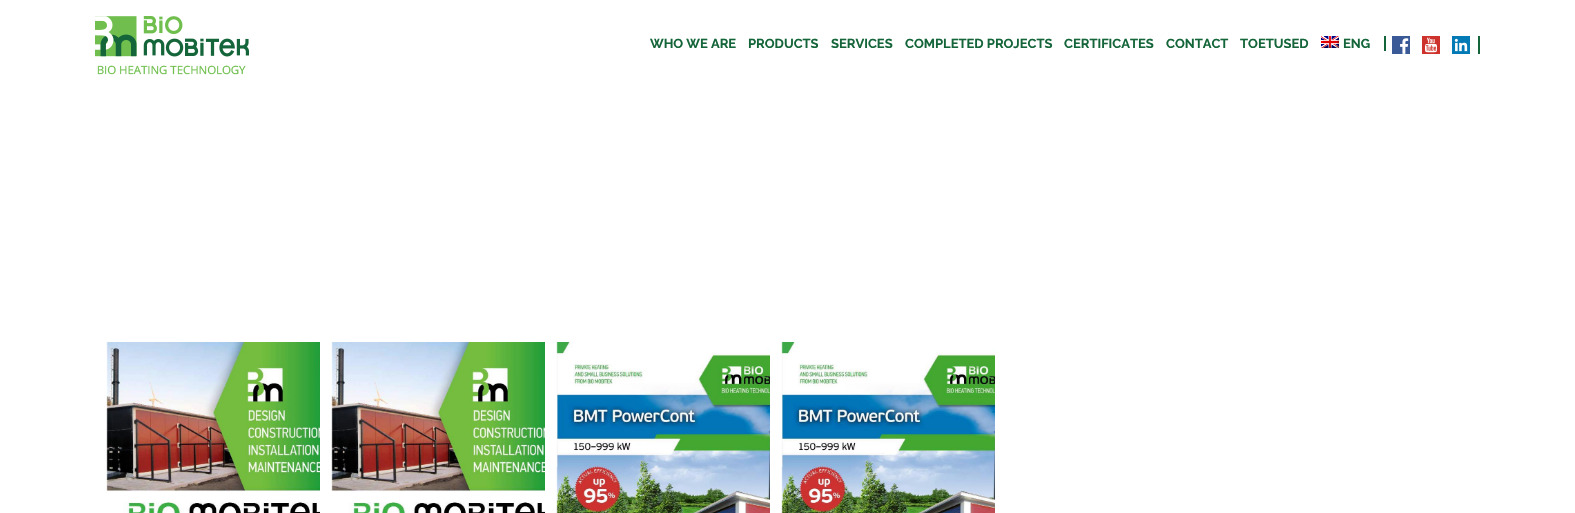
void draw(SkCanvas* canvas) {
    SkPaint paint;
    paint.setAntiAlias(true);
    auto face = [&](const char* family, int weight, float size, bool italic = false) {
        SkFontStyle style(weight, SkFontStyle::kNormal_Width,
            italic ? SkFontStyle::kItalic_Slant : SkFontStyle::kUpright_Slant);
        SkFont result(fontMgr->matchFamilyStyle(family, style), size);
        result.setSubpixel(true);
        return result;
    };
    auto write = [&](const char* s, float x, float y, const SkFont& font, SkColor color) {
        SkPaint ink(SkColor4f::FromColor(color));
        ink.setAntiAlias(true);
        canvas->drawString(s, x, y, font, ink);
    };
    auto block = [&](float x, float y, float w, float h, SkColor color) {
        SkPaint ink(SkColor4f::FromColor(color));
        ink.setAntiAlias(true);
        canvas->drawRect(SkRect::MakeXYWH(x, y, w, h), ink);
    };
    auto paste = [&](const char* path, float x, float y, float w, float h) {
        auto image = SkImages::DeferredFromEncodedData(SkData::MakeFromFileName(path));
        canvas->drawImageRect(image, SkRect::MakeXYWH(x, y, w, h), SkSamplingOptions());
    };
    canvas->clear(SK_ColorWHITE);
    paste("pic1.png", 95, 16, 154, 59);
    block(1384, 36, 2, 15, SkColorSetRGB(20, 101, 57));
    auto kFont1 = face("Raleway", 700, 13);
    write("WHO WE ARE", 650, 48, kFont1, SkColorSetRGB(20, 101, 57));
    write("PRODUCTS", 748, 48, kFont1, SkColorSetRGB(20, 101, 57));
    write("SERVICES", 831, 48, kFont1, SkColorSetRGB(20, 101, 57));
    write("COMPLETED PROJECTS", 905, 48, kFont1, SkColorSetRGB(20, 101, 57));
    write("CERTIFICATES", 1064, 48, kFont1, SkColorSetRGB(20, 101, 57));
    write("CONTACT", 1166, 48, kFont1, SkColorSetRGB(20, 101, 57));
    write("TOETUSED", 1240, 48, kFont1, SkColorSetRGB(20, 101, 57));
    paste("pic2.png", 1321, 36, 18, 12);
    write("ENG", 1343, 48, kFont1, SkColorSetRGB(20, 101, 57));
    block(1478, 36, 2, 18, SkColorSetRGB(20, 101, 57));
    paste("pic3.png", 1392, 36, 18, 18);
    paste("pic4.png", 1422, 36, 18, 18);
    paste("pic5.png", 1452, 36, 18, 18);
    paste("pic6.png", 106, 342, 214, 171);
    paste("pic6.png", 331, 342, 214, 171);
    paste("pic7.png", 556, 342, 214, 171);
    paste("pic7.png", 781, 342, 214, 171);
}
